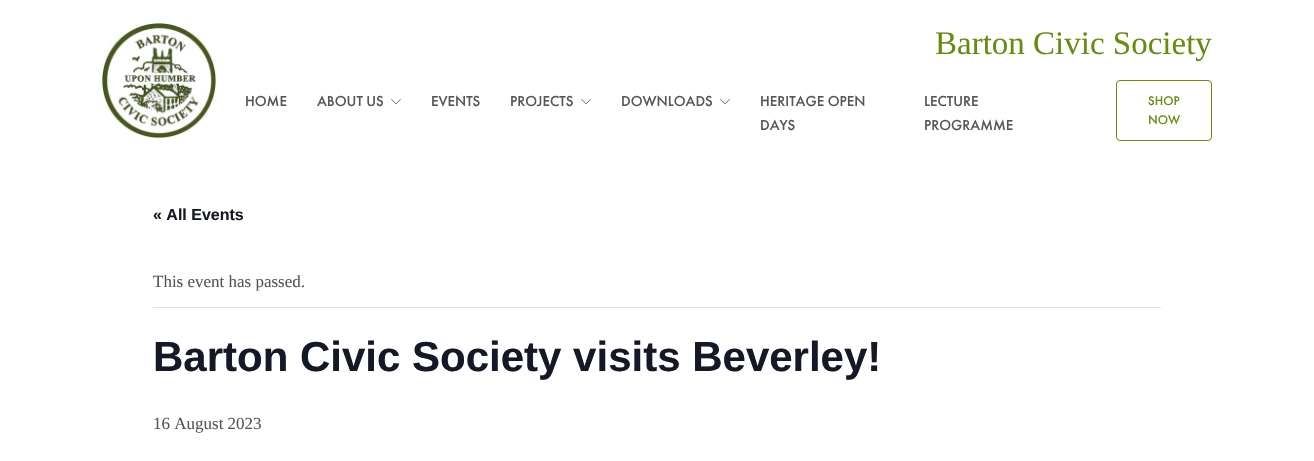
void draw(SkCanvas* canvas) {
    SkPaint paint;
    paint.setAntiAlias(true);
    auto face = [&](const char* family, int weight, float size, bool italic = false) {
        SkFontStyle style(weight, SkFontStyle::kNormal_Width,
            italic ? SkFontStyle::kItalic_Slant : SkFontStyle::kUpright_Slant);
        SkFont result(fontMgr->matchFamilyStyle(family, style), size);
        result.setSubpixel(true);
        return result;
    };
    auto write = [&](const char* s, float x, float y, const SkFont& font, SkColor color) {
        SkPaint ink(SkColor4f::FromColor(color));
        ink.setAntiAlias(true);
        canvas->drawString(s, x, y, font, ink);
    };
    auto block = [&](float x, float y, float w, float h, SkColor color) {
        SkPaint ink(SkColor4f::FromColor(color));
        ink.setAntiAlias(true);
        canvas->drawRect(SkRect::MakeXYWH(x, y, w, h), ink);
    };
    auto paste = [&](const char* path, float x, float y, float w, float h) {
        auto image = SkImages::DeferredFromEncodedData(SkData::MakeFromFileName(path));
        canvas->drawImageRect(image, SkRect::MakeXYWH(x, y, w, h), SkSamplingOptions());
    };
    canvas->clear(SK_ColorWHITE);
    paste("pic1.png", 102, 23, 114, 115);
    auto kFont1 = face("Liberation Serif", 400, 33);
    write("Barton Civic Society", 935, 54, kFont1, SkColorSetRGB(102, 141, 17));
    auto kFont2 = face("Futura PT", 500, 15);
    write("HOME", 245, 106, kFont2, SkColorSetRGB(85, 85, 85));
    write("ABOUT US", 317, 106, kFont2, SkColorSetRGB(85, 85, 85));
    paste("pic2.png", 391, 99, 10, 6);
    write("EVENTS", 431, 106, kFont2, SkColorSetRGB(85, 85, 85));
    write("PROJECTS", 510, 106, kFont2, SkColorSetRGB(85, 85, 85));
    paste("pic2.png", 581, 99, 10, 6);
    write("DOWNLOADS", 621, 106, kFont2, SkColorSetRGB(85, 85, 85));
    paste("pic2.png", 720, 99, 10, 6);
    write("HERITAGE OPEN", 760, 106, kFont2, SkColorSetRGB(85, 85, 85));
    write("DAYS", 760, 130, kFont2, SkColorSetRGB(85, 85, 85));
    write("LECTURE", 924, 106, kFont2, SkColorSetRGB(85, 85, 85));
    write("PROGRAMME", 924, 130, kFont2, SkColorSetRGB(85, 85, 85));
    paint.setStyle(SkPaint::kStroke_Style);
    paint.setStrokeWidth(1);
    paint.setColor(SkColorSetRGB(102, 141, 17));
    canvas->drawRoundRect(SkRect::MakeXYWH(1116.5f, 80.5f, 95, 60), 3.5f, 3.5f, paint);
    auto kFont3 = face("Futura PT", 500, 13);
    write("SHOP", 1148, 105, kFont3, SkColorSetRGB(102, 141, 17));
    write("NOW", 1148, 124, kFont3, SkColorSetRGB(102, 141, 17));
    auto kFont4 = face("Liberation Sans", 700, 16);
    write("« All Events", 153, 220, kFont4, SkColorSetRGB(20, 24, 39));
    block(153, 307, 1008, 1, SkColorSetRGB(228, 228, 228));
    auto kFont5 = face("Liberation Serif", 400, 17);
    write("This event has passed.", 153, 287, kFont5, SkColorSetRGB(85, 85, 85));
    auto kFont6 = face("Liberation Sans", 700, 42);
    write("Barton Civic Society visits Beverley!", 153, 371, kFont6, SkColorSetRGB(20, 24, 39));
    write("16 August 2023", 153, 429, kFont5, SkColorSetRGB(85, 85, 85));
}
